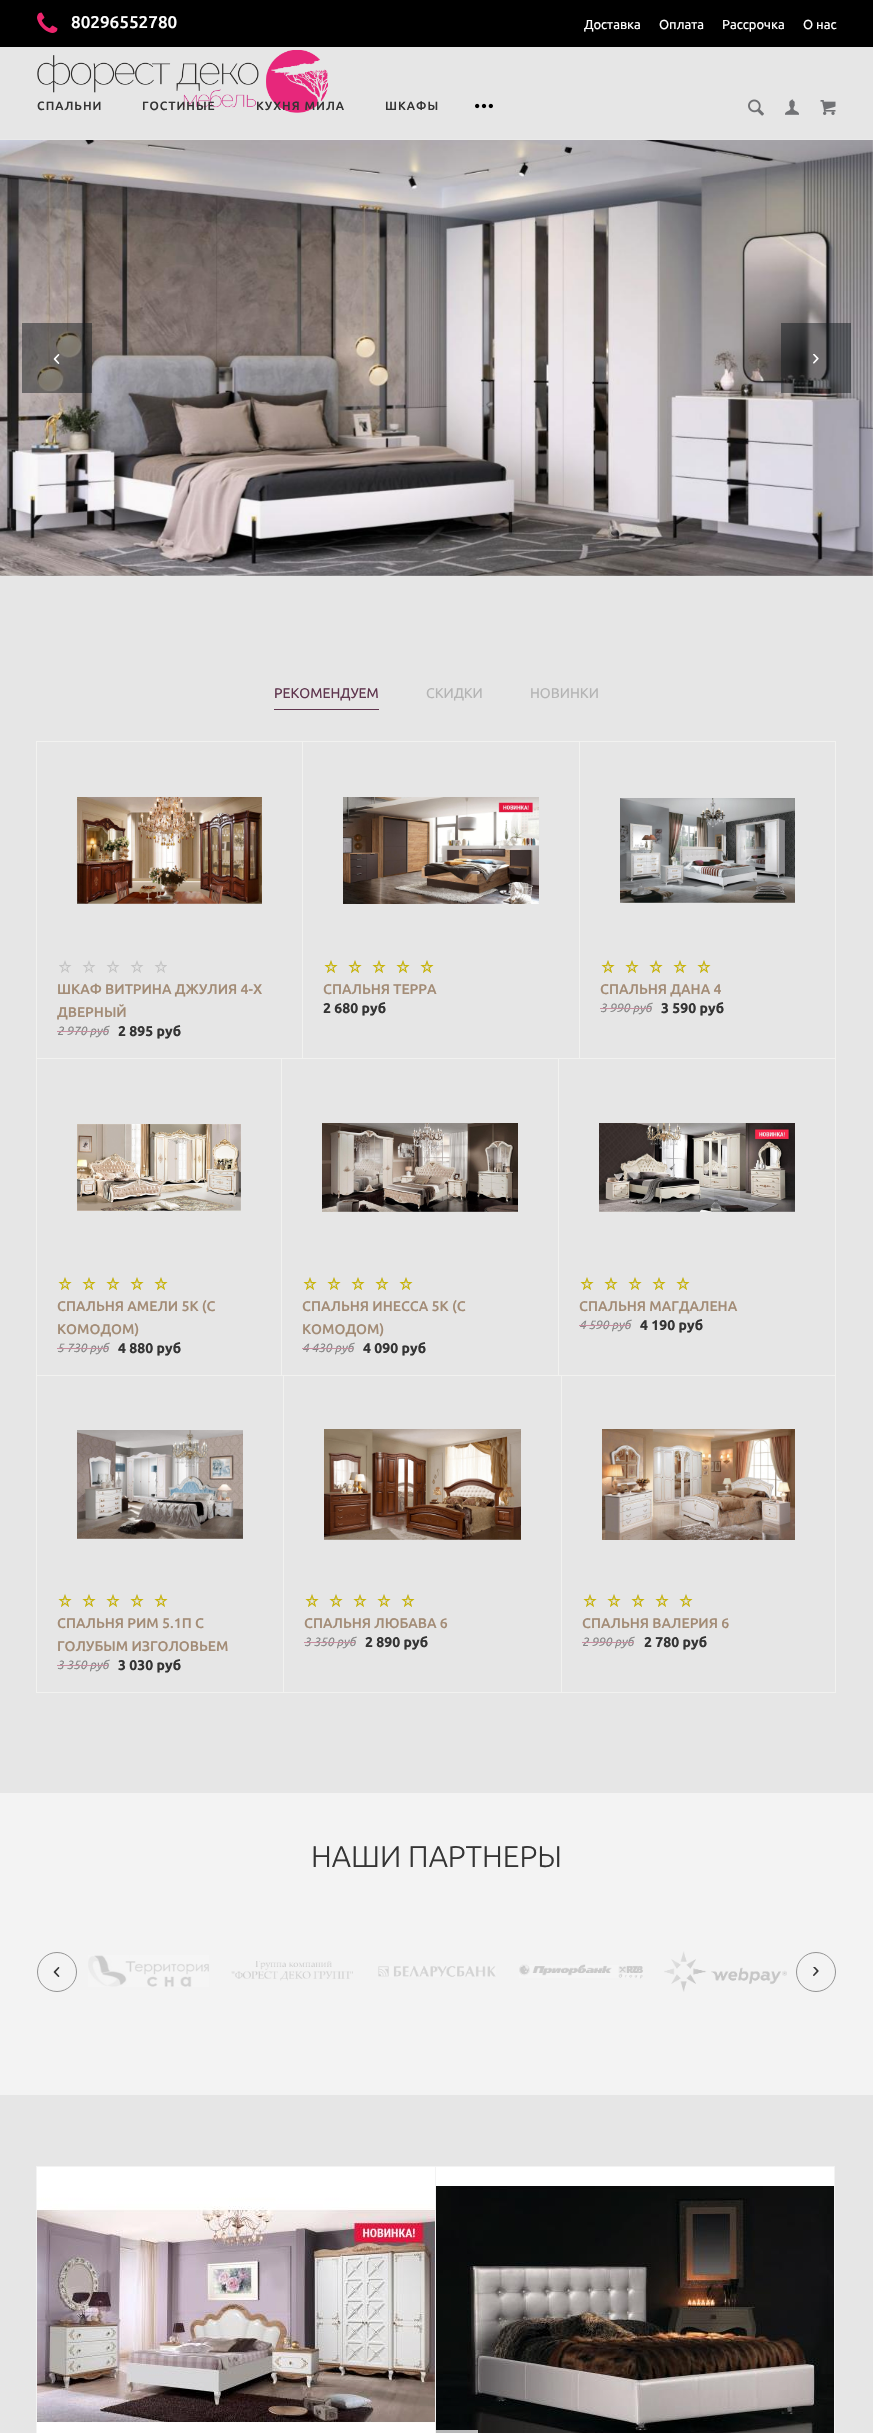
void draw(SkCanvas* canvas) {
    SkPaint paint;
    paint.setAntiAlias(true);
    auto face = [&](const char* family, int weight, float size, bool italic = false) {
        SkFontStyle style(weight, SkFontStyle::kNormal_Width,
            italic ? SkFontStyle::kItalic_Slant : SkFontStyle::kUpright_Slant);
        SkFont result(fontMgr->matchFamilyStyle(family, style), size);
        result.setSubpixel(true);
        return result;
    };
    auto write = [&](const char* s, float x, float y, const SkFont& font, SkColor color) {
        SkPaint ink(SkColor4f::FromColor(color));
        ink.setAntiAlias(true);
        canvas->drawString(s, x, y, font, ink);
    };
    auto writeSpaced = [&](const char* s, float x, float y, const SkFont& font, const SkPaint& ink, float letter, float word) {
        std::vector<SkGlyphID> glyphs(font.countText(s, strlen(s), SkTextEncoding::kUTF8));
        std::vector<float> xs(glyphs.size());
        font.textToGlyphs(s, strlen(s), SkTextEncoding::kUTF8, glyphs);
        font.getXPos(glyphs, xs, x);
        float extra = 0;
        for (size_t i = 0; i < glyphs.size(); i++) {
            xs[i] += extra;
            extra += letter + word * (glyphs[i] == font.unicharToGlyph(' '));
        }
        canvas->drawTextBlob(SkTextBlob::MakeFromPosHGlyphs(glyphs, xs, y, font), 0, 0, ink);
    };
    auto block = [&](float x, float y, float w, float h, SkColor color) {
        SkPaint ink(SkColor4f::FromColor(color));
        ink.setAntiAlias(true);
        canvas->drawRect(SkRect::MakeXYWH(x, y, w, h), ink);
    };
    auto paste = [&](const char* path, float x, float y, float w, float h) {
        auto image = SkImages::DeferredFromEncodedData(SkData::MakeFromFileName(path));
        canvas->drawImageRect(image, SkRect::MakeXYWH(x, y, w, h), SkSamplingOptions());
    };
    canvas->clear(SkColorSetRGB(230, 230, 230));
    block(0, 139, 873, 1, SkColorSetRGB(234, 234, 234));
    block(0, 0, 873, 47, SK_ColorBLACK);
    paste("pic1.png", 37, 12, 21, 21);
    auto kFont1 = face("Ubuntu", 500, 17);
    write("80296552780", 71, 28, kFont1, SK_ColorWHITE);
    auto kFont2 = face("Ubuntu", 400, 13);
    write("Доставка", 584, 29, kFont2, SK_ColorWHITE);
    write("Оплата", 659, 29, kFont2, SK_ColorWHITE);
    write("Рассрочка", 722, 29, kFont2, SK_ColorWHITE);
    write("О нас", 803, 29, kFont2, SK_ColorWHITE);
    paste("pic2.png", 37, 50, 291, 63);
    paste("pic3.png", 748, 99, 16, 17);
    paste("pic4.png", 785, 99, 14, 16);
    paste("pic5.png", 820, 100, 16, 15);
    auto kFont3 = face("Ubuntu", 500, 12);
    paint.setColor(SkColorSetRGB(52, 52, 52));
    writeSpaced("СПАЛЬНИ", 37, 110, kFont3, paint, 1, 0);
    writeSpaced("ГОСТИНЫЕ", 142, 110, kFont3, paint, 1, 0);
    writeSpaced("КУХНЯ МИЛА", 256, 110, kFont3, paint, 1, 0);
    writeSpaced("ШКАФЫ", 385, 110, kFont3, paint, 1, 0);
    paste("pic6.png", 475, 103, 18, 6);
    paste("pic7.png", 0, 140, 873, 436);
    block(22, 323, 70, 70, SkColorSetARGB(128, 20, 25, 30));
    paste("pic8.png", 53, 354, 7, 10);
    block(781, 323, 70, 70, SkColorSetARGB(128, 20, 25, 30));
    paste("pic9.png", 813, 354, 6, 10);
    auto kFont4 = face("Ubuntu", 400, 14);
    write("РЕКОМЕНДУЕМ", 274, 698, kFont4, SkColorSetRGB(96, 54, 79));
    block(274, 709, 105, 1, SkColorSetRGB(96, 54, 79));
    write("СКИДКИ", 426, 698, kFont4, SkColorSetRGB(180, 180, 180));
    write("НОВИНКИ", 530, 698, kFont4, SkColorSetRGB(180, 180, 180));
    paint.setStyle(SkPaint::kStroke_Style);
    paint.setStrokeWidth(1);
    paint.setColor(SkColorSetRGB(242, 242, 240));
    canvas->drawRect(SkRect::MakeXYWH(36.5f, 741.5f, 266, 317), paint);
    paste("pic10.png", 77, 797, 185, 107);
    paste("pic11.png", 59, 960, 108, 13);
    auto kFont5 = face("Ubuntu", 500, 14);
    write("ШКАФ ВИТРИНА ДЖУЛИЯ 4-Х", 57, 994, kFont5, SkColorSetRGB(163, 140, 118));
    write("ДВЕРНЫЙ", 57, 1017, kFont5, SkColorSetRGB(163, 140, 118));
    auto kFont6 = face("Ubuntu", 400, 12, true);
    write("2 970 руб", 57, 1035, kFont6, SkColorSetRGB(134, 134, 134));
    block(57, 1031, 51, 1, SkColorSetRGB(201, 141, 159));
    auto kFont7 = face("Ubuntu", 700, 14);
    write("2 895 руб", 118, 1036, kFont7, SkColorSetRGB(52, 52, 52));
    canvas->drawRect(SkRect::MakeXYWH(302.5f, 741.5f, 277, 317), paint);
    paste("pic12.png", 343, 797, 196, 107);
    paste("pic11.png", 325, 960, 108, 13);
    paste("pic13.png", 324, 960, 110, 13);
    write("СПАЛЬНЯ ТЕРРА", 323, 994, kFont5, SkColorSetRGB(163, 140, 118));
    write("2 680 руб", 323, 1013, kFont7, SkColorSetRGB(52, 52, 52));
    canvas->drawRect(SkRect::MakeXYWH(579.5f, 741.5f, 256, 317), paint);
    paste("pic14.png", 620, 798, 175, 105);
    paste("pic11.png", 602, 960, 108, 13);
    paste("pic13.png", 601, 960, 110, 13);
    write("СПАЛЬНЯ ДАНА 4", 600, 994, kFont5, SkColorSetRGB(163, 140, 118));
    write("3 990 руб", 600, 1012, kFont6, SkColorSetRGB(134, 134, 134));
    block(600, 1008, 51, 1, SkColorSetRGB(201, 141, 159));
    write("3 590 руб", 661, 1013, kFont7, SkColorSetRGB(52, 52, 52));
    canvas->drawRect(SkRect::MakeXYWH(36.5f, 1058.5f, 245, 317), paint);
    paste("pic15.png", 77, 1124, 164, 87);
    paste("pic11.png", 59, 1277, 108, 13);
    paste("pic13.png", 58, 1277, 110, 13);
    write("СПАЛЬНЯ АМЕЛИ 5К (С", 57, 1311, kFont5, SkColorSetRGB(163, 140, 118));
    write("КОМОДОМ)", 57, 1334, kFont5, SkColorSetRGB(163, 140, 118));
    write("5 730 руб", 57, 1352, kFont6, SkColorSetRGB(134, 134, 134));
    block(57, 1348, 51, 1, SkColorSetRGB(201, 141, 159));
    write("4 880 руб", 118, 1353, kFont7, SkColorSetRGB(52, 52, 52));
    canvas->drawRect(SkRect::MakeXYWH(281.5f, 1058.5f, 277, 317), paint);
    paste("pic16.png", 322, 1123, 196, 89);
    paste("pic11.png", 304, 1277, 108, 13);
    paste("pic13.png", 303, 1277, 110, 13);
    write("СПАЛЬНЯ ИНЕССА 5К (С", 302, 1311, kFont5, SkColorSetRGB(163, 140, 118));
    write("КОМОДОМ)", 302, 1334, kFont5, SkColorSetRGB(163, 140, 118));
    write("4 430 руб", 302, 1352, kFont6, SkColorSetRGB(134, 134, 134));
    block(302, 1348, 51, 1, SkColorSetRGB(201, 141, 159));
    write("4 090 руб", 363, 1353, kFont7, SkColorSetRGB(52, 52, 52));
    canvas->drawRect(SkRect::MakeXYWH(558.5f, 1058.5f, 277, 317), paint);
    paste("pic17.png", 599, 1123, 196, 89);
    paste("pic11.png", 581, 1277, 108, 13);
    paste("pic13.png", 580, 1277, 110, 13);
    write("СПАЛЬНЯ МАГДАЛЕНА", 579, 1311, kFont5, SkColorSetRGB(163, 140, 118));
    write("4 590 руб", 579, 1329, kFont6, SkColorSetRGB(134, 134, 134));
    block(579, 1325, 51, 1, SkColorSetRGB(201, 141, 159));
    write("4 190 руб", 640, 1330, kFont7, SkColorSetRGB(52, 52, 52));
    canvas->drawRect(SkRect::MakeXYWH(36.5f, 1375.5f, 247, 317), paint);
    paste("pic18.png", 77, 1430, 166, 109);
    paste("pic11.png", 59, 1594, 108, 13);
    paste("pic13.png", 58, 1594, 110, 13);
    write("СПАЛЬНЯ РИМ 5.1П С", 57, 1628, kFont5, SkColorSetRGB(163, 140, 118));
    write("ГОЛУБЫМ ИЗГОЛОВЬЕМ", 57, 1651, kFont5, SkColorSetRGB(163, 140, 118));
    write("3 350 руб", 57, 1669, kFont6, SkColorSetRGB(134, 134, 134));
    block(57, 1665, 51, 1, SkColorSetRGB(201, 141, 159));
    write("3 030 руб", 118, 1670, kFont7, SkColorSetRGB(52, 52, 52));
    canvas->drawRect(SkRect::MakeXYWH(283.5f, 1375.5f, 278, 317), paint);
    paste("pic19.png", 324, 1429, 197, 111);
    paste("pic11.png", 306, 1594, 108, 13);
    paste("pic13.png", 305, 1594, 110, 13);
    write("СПАЛЬНЯ ЛЮБАВА 6", 304, 1628, kFont5, SkColorSetRGB(163, 140, 118));
    write("3 350 руб", 304, 1646, kFont6, SkColorSetRGB(134, 134, 134));
    block(304, 1642, 51, 1, SkColorSetRGB(201, 141, 159));
    write("2 890 руб", 365, 1647, kFont7, SkColorSetRGB(52, 52, 52));
    canvas->drawRect(SkRect::MakeXYWH(561.5f, 1375.5f, 274, 317), paint);
    paste("pic20.png", 602, 1429, 193, 111);
    paste("pic11.png", 584, 1594, 108, 13);
    paste("pic13.png", 583, 1594, 110, 13);
    write("СПАЛЬНЯ ВАЛЕРИЯ 6", 582, 1628, kFont5, SkColorSetRGB(163, 140, 118));
    write("2 990 руб", 582, 1646, kFont6, SkColorSetRGB(134, 134, 134));
    block(582, 1642, 52, 1, SkColorSetRGB(201, 141, 159));
    write("2 780 руб", 644, 1647, kFont7, SkColorSetRGB(52, 52, 52));
    block(0, 1793, 873, 302, SkColorSetRGB(243, 243, 243));
    auto kFont8 = face("Ubuntu", 300, 30);
    write("НАШИ ПАРТНЕРЫ", 311, 1867, kFont8, SkColorSetRGB(52, 52, 52));
    paint.setColor(SkColorSetRGB(148, 148, 148));
    canvas->drawCircle(57, 1972, 19.5f, paint);
    paste("pic21.png", 53, 1967, 7, 10);
    paste("pic22.png", 88, 1955, 121, 32);
    paste("pic23.png", 231, 1961, 122, 20);
    paste("pic24.png", 378, 1966, 118, 11);
    paste("pic25.png", 519, 1964, 124, 15);
    paste("pic26.png", 664, 1951, 123, 41);
    canvas->drawCircle(816, 1972, 19.5f, paint);
    paste("pic27.png", 813, 1967, 6, 9);
    paint.setColor(SkColorSetRGB(243, 243, 243));
    canvas->drawRect(SkRect::MakeXYWH(36.5f, 2166.5f, 400, 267), paint);
    paste("pic28.png", 37, 2167, 398, 266);
    canvas->drawRect(SkRect::MakeXYWH(435.5f, 2166.5f, 399, 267), paint);
    paste("pic29.png", 436, 2167, 398, 266);
    block(436, 2430, 42, 3, SkColorSetARGB(179, 255, 255, 255));
}
